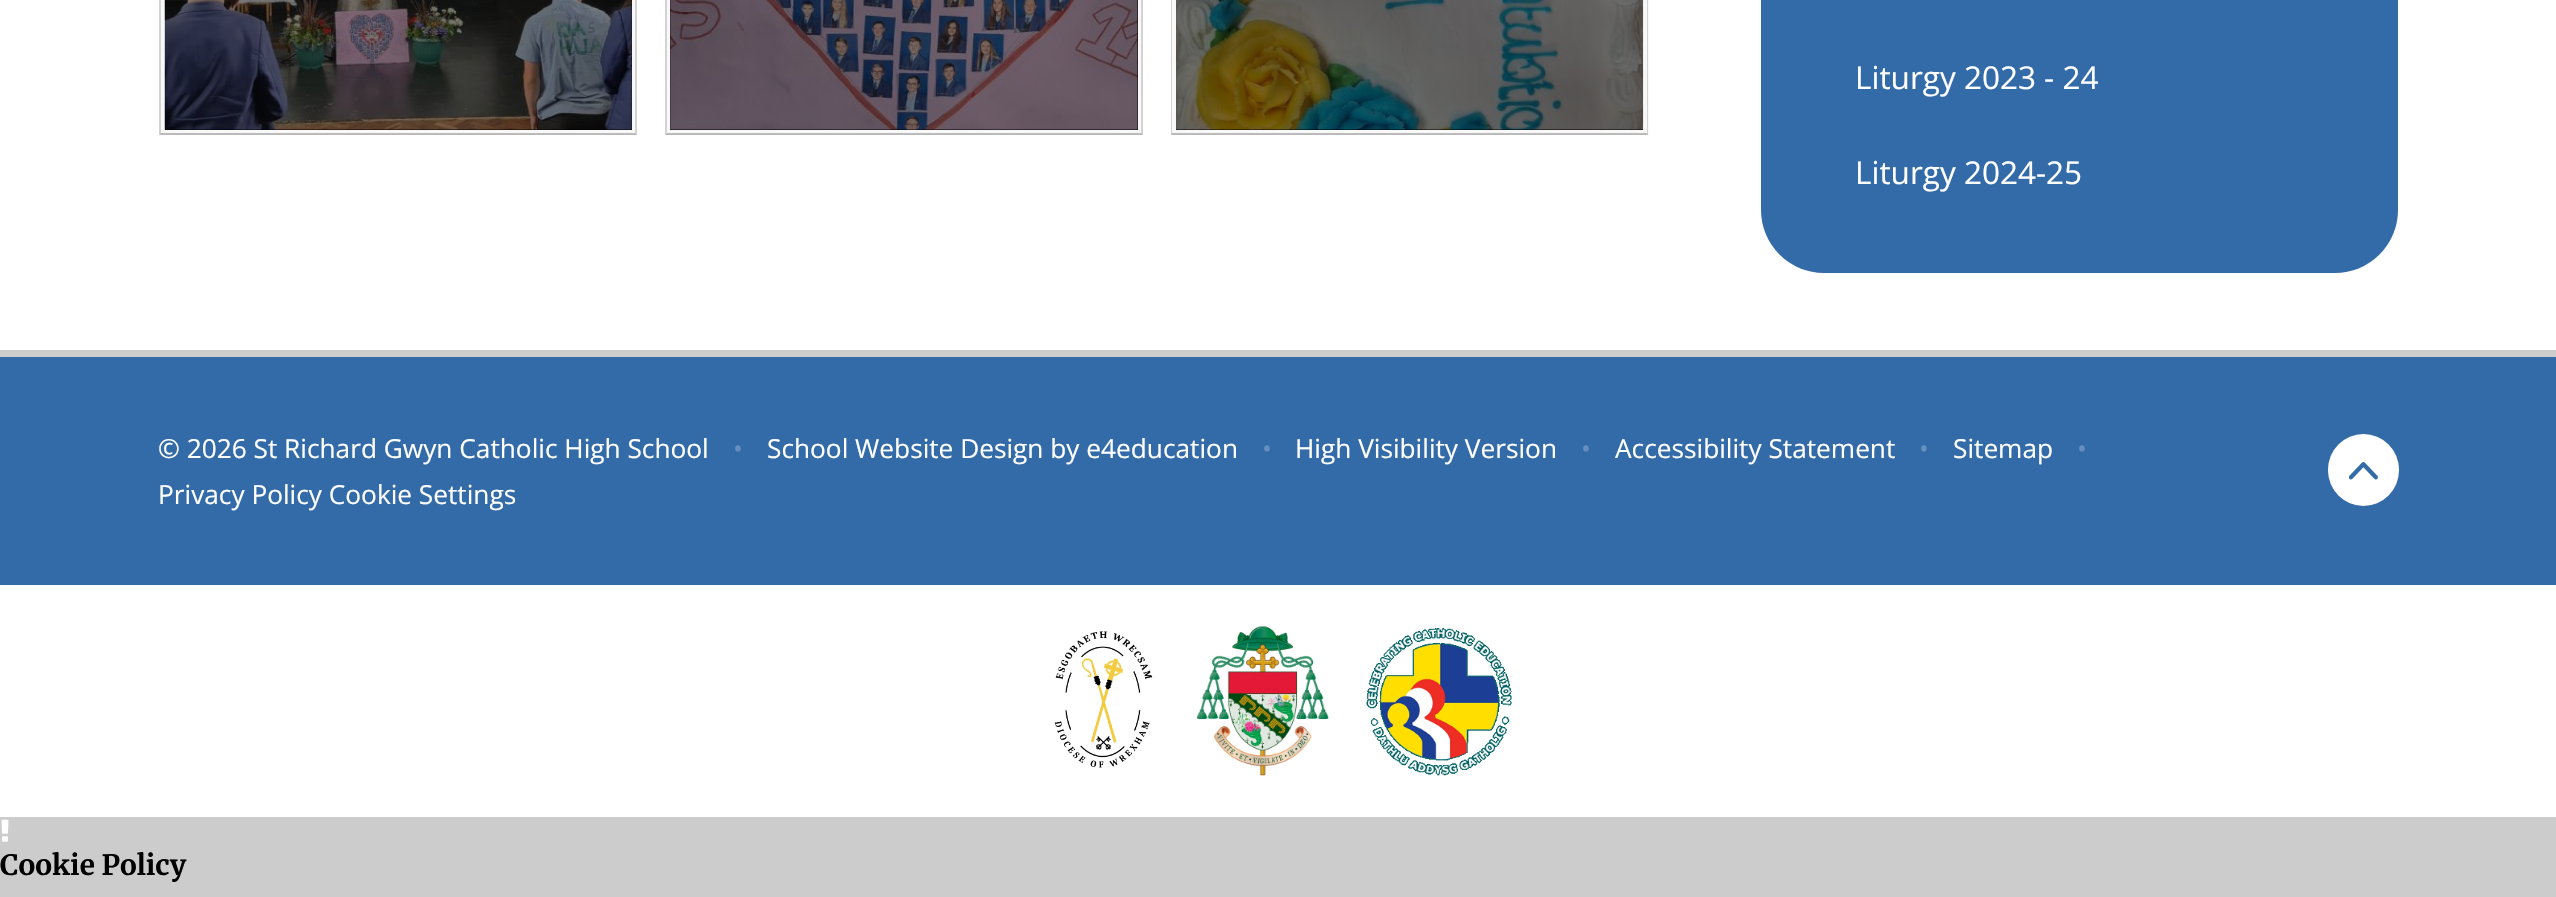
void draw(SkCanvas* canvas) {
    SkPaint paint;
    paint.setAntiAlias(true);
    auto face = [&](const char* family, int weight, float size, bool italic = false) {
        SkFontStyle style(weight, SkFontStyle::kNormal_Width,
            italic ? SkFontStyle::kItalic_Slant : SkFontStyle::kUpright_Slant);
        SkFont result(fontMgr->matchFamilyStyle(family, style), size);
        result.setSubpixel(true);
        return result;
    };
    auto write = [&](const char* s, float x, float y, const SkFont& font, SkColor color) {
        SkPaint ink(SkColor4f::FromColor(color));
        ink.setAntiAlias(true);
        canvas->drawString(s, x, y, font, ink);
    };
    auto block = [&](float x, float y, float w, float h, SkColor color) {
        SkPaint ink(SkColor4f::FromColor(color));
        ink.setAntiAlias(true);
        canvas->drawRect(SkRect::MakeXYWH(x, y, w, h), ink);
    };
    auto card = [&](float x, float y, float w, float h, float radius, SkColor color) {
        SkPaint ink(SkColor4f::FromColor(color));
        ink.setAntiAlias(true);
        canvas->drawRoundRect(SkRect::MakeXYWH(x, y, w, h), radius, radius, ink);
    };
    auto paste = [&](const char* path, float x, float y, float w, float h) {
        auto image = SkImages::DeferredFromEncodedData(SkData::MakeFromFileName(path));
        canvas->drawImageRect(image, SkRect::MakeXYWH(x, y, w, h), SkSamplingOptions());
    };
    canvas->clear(SkColorSetRGB(204, 204, 204));
    block(0, 357, 2556, 228, SkColorSetRGB(50, 107, 168));
    block(0, 0, 2556, 350, SK_ColorWHITE);
    block(159, 0, 478, 135, SkColorSetRGB(248, 248, 248));
    paint.setColor(SkColorSetRGB(211, 211, 211));
    canvas->drawPath(SkPathBuilder().moveTo(637, -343).lineTo(637, 135).lineTo(635, 133).lineTo(635, -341).close().detach(), paint);
    paint.setColor(SkColorSetARGB(64, 0, 0, 0));
    canvas->drawPath(SkPathBuilder().moveTo(637, 135).lineTo(159, 135).lineTo(161, 133).lineTo(635, 133).close().detach(), paint);
    paint.setColor(SkColorSetARGB(38, 0, 0, 0));
    canvas->drawPath(SkPathBuilder().moveTo(159, 135).lineTo(159, -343).lineTo(161, -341).lineTo(161, 133).close().detach(), paint);
    block(165, 0, 467, 130, SK_ColorBLACK);
    paste("pic1.png", 164, 0, 468, 130);
    block(665, 0, 478, 135, SkColorSetRGB(248, 248, 248));
    paint.setColor(SkColorSetRGB(211, 211, 211));
    canvas->drawPath(SkPathBuilder().moveTo(1143, -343).lineTo(1143, 135).lineTo(1141, 133).lineTo(1141, -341).close().detach(), paint);
    paint.setColor(SkColorSetARGB(64, 0, 0, 0));
    canvas->drawPath(SkPathBuilder().moveTo(1143, 135).lineTo(665, 135).lineTo(667, 133).lineTo(1141, 133).close().detach(), paint);
    paint.setColor(SkColorSetARGB(38, 0, 0, 0));
    canvas->drawPath(SkPathBuilder().moveTo(665, 135).lineTo(665, -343).lineTo(667, -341).lineTo(667, 133).close().detach(), paint);
    block(670, 0, 468, 130, SK_ColorBLACK);
    paste("pic2.png", 670, 0, 468, 130);
    block(1171, 0, 478, 135, SkColorSetRGB(248, 248, 248));
    paint.setColor(SkColorSetRGB(211, 211, 211));
    canvas->drawPath(SkPathBuilder().moveTo(1648, -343).lineTo(1648, 135).lineTo(1647, 133).lineTo(1647, -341).close().detach(), paint);
    paint.setColor(SkColorSetARGB(64, 0, 0, 0));
    canvas->drawPath(SkPathBuilder().moveTo(1648, 135).lineTo(1171, 135).lineTo(1172, 133).lineTo(1647, 133).close().detach(), paint);
    paint.setColor(SkColorSetARGB(38, 0, 0, 0));
    canvas->drawPath(SkPathBuilder().moveTo(1171, 135).lineTo(1171, -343).lineTo(1172, -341).lineTo(1172, 133).close().detach(), paint);
    block(1176, 0, 467, 130, SK_ColorBLACK);
    paste("pic3.png", 1176, 0, 468, 130);
    card(1761, -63, 637, 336, 63, SkColorSetRGB(50, 107, 168));
    auto kFont1 = face("Open Sans", 400, 31.5f);
    write("Liturgy 2023 - 24", 1855, 89, kFont1, SK_ColorWHITE);
    write("Liturgy 2024-25", 1855, 184, kFont1, SK_ColorWHITE);
    auto kFont2 = face("Open Sans", 400, 26.25f);
    write("© 2026 St Richard Gwyn Catholic High School", 158, 458, kFont2, SK_ColorWHITE);
    write("•", 733, 458, kFont2, SkColorSetRGB(101, 144, 190));
    write("School Website Design by e4education", 767, 458, kFont2, SK_ColorWHITE);
    write("•", 1262, 458, kFont2, SkColorSetRGB(101, 144, 190));
    write("High Visibility Version", 1295, 458, kFont2, SK_ColorWHITE);
    write("•", 1581, 458, kFont2, SkColorSetRGB(101, 144, 190));
    write("Accessibility Statement", 1615, 458, kFont2, SK_ColorWHITE);
    write("•", 1919, 458, kFont2, SkColorSetRGB(101, 144, 190));
    write("Sitemap", 1953, 458, kFont2, SK_ColorWHITE);
    write("•", 2077, 458, kFont2, SkColorSetRGB(101, 144, 190));
    write("Privacy Policy Cookie Settings", 158, 504, kFont2, SK_ColorWHITE);
    card(2328, 434, 71, 72, 35.5f, SK_ColorWHITE);
    paste("pic4.png", 2349, 462, 29, 18);
    block(0, 585, 2556, 232, SK_ColorWHITE);
    paste("pic5.png", 1054, 631, 99, 137);
    paste("pic6.png", 1197, 626, 132, 150);
    paste("pic7.png", 1366, 628, 146, 148);
    paste("pic8.png", 1, 819, 8, 23);
    auto kFont3 = face("Merriweather", 700, 28);
    write("Cookie Policy", 0, 875, kFont3, SK_ColorBLACK);
}
